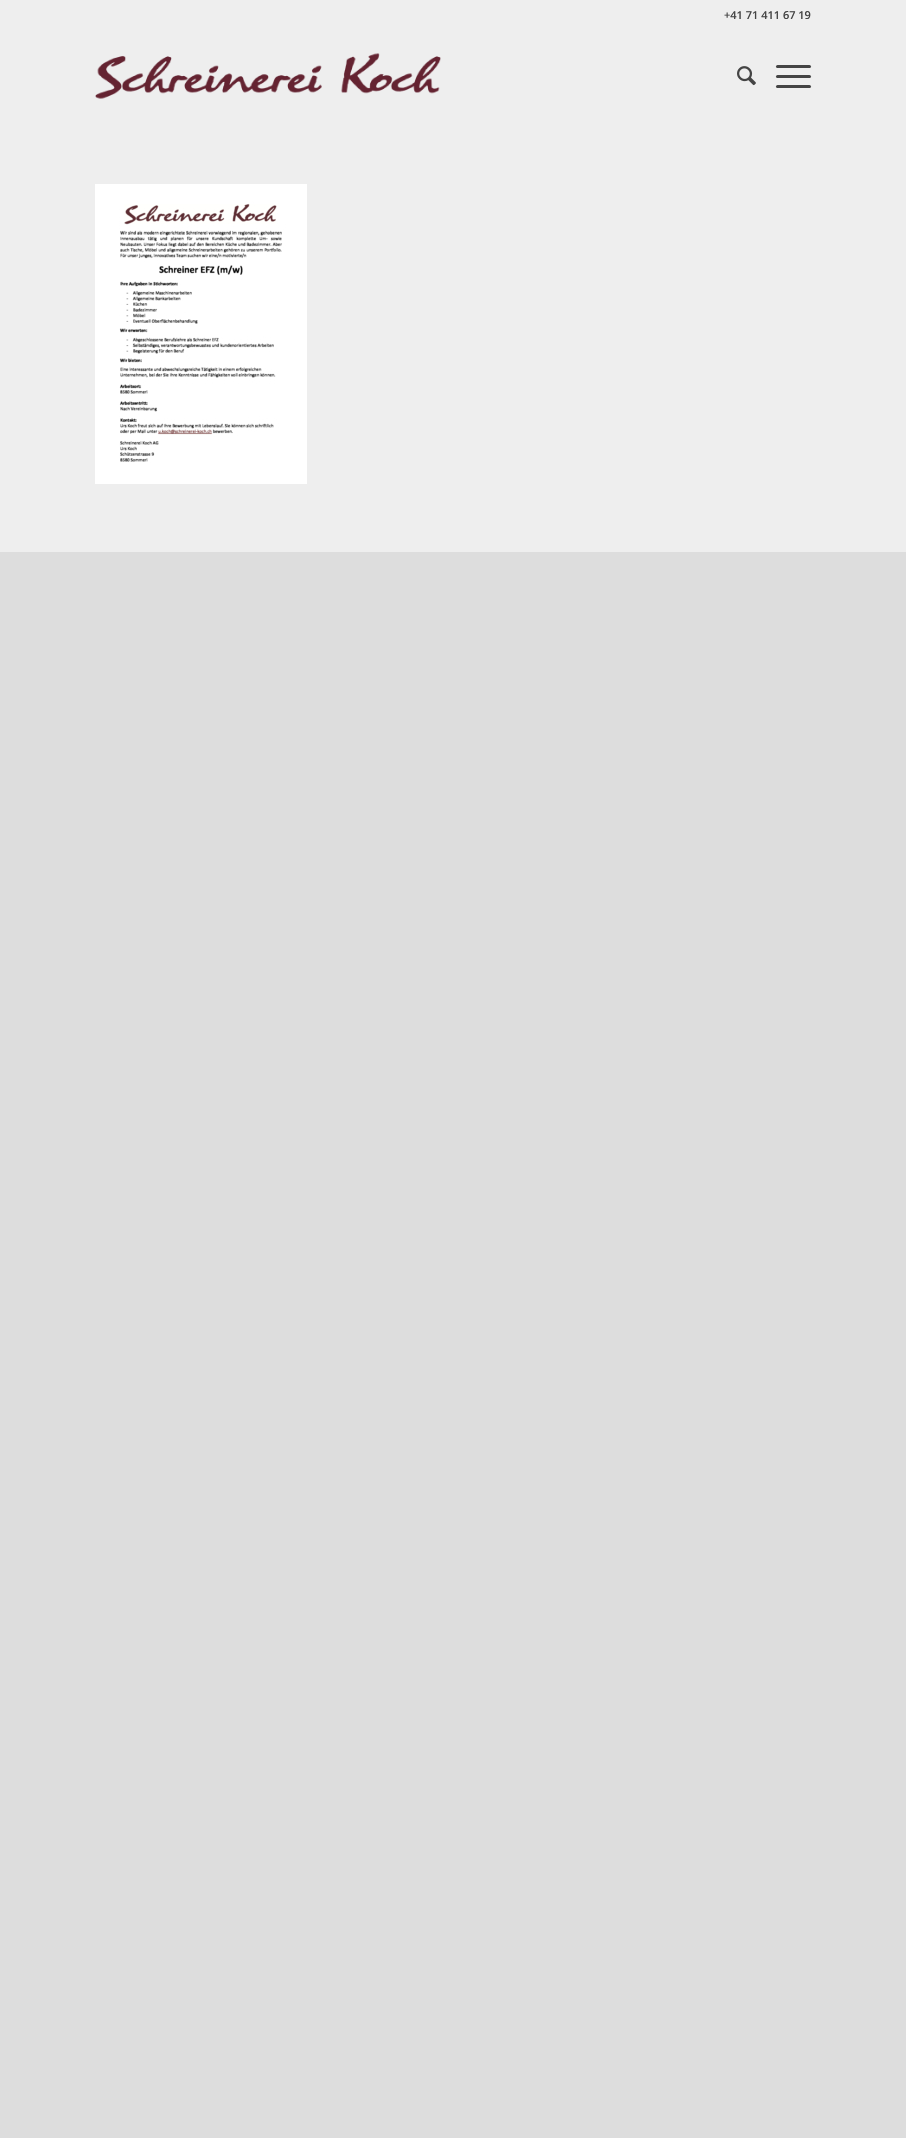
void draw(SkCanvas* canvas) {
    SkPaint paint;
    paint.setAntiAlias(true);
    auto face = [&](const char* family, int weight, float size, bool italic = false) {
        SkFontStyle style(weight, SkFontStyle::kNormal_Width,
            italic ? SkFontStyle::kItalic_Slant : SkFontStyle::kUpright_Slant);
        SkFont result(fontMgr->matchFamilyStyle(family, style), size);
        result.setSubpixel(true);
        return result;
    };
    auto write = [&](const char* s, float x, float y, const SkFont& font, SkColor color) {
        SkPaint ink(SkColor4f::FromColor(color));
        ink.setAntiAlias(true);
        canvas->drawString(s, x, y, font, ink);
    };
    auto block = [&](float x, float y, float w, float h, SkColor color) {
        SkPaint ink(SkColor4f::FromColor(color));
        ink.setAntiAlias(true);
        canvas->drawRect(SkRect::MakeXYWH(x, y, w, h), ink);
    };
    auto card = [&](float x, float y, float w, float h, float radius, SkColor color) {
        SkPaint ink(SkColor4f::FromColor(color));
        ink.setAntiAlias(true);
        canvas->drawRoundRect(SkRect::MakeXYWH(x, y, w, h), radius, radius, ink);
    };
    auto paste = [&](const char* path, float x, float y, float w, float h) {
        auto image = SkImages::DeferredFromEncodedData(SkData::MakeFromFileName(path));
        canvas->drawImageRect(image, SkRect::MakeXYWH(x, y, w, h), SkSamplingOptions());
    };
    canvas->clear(SkColorSetRGB(221, 221, 221));
    block(0, 0, 906, 552, SkColorSetRGB(238, 238, 238));
    paste("pic1.png", 95, 184, 212, 300);
    auto kFont1 = face("Open Sans", 600, 11);
    write("+41 71 411 67 19", 724, 19, kFont1, SkColorSetRGB(68, 68, 68));
    paste("pic2.png", 95, 53, 346, 46);
    paste("pic3.png", 737, 66, 19, 20);
    card(776, 75, 35, 3, 1.5f, SkColorSetRGB(68, 68, 68));
    card(776, 65, 35, 3, 1.5f, SkColorSetRGB(68, 68, 68));
    card(776, 85, 35, 3, 1.5f, SkColorSetRGB(68, 68, 68));
}
